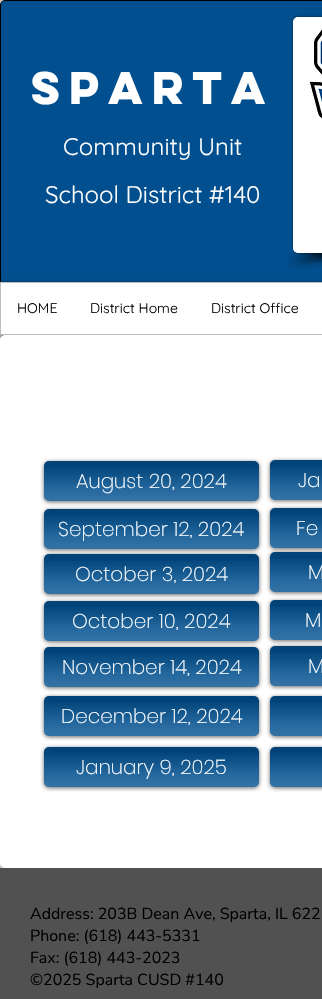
void draw(SkCanvas* canvas) {
    SkPaint paint;
    paint.setAntiAlias(true);
    auto face = [&](const char* family, int weight, float size, bool italic = false) {
        SkFontStyle style(weight, SkFontStyle::kNormal_Width,
            italic ? SkFontStyle::kItalic_Slant : SkFontStyle::kUpright_Slant);
        SkFont result(fontMgr->matchFamilyStyle(family, style), size);
        result.setSubpixel(true);
        return result;
    };
    auto write = [&](const char* s, float x, float y, const SkFont& font, SkColor color) {
        SkPaint ink(SkColor4f::FromColor(color));
        ink.setAntiAlias(true);
        canvas->drawString(s, x, y, font, ink);
    };
    auto block = [&](float x, float y, float w, float h, SkColor color) {
        SkPaint ink(SkColor4f::FromColor(color));
        ink.setAntiAlias(true);
        canvas->drawRect(SkRect::MakeXYWH(x, y, w, h), ink);
    };
    auto card = [&](float x, float y, float w, float h, float radius, SkColor color) {
        SkPaint ink(SkColor4f::FromColor(color));
        ink.setAntiAlias(true);
        canvas->drawRoundRect(SkRect::MakeXYWH(x, y, w, h), radius, radius, ink);
    };
    auto paste = [&](const char* path, float x, float y, float w, float h) {
        auto image = SkImages::DeferredFromEncodedData(SkData::MakeFromFileName(path));
        canvas->drawImageRect(image, SkRect::MakeXYWH(x, y, w, h), SkSamplingOptions());
    };
    canvas->clear(SkColorSetRGB(202, 202, 202));
    paint.setColor(SkColorSetRGB(1, 79, 142));
    canvas->drawRoundRect(SkRect::MakeXYWH(0.5f, 0.5f, 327, 334), 4.5f, 4.5f, paint);
    paint.setStyle(SkPaint::kStroke_Style);
    paint.setStrokeWidth(1);
    paint.setColor(SK_ColorBLACK);
    canvas->drawRoundRect(SkRect::MakeXYWH(0.5f, 0.5f, 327, 334), 4.5f, 4.5f, paint);
    auto kFont1 = face("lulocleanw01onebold", 700, 41);
    write("Sparta", 31, 104, kFont1, SK_ColorWHITE);
    auto kFont2 = face("Quicksand", 400, 24);
    write("Community Unit", 63, 155, kFont2, SK_ColorWHITE);
    write("School District #140", 45, 203, kFont2, SK_ColorWHITE);
    paint.setStyle(SkPaint::kFill_Style);
    paint.setColor(SkColorSetARGB(128, 0, 0, 0));
    paint.setMaskFilter(SkMaskFilter::MakeBlur(kNormal_SkBlurStyle, 1.5f));
    canvas->drawRoundRect(SkRect::MakeXYWH(293, 17, 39, 236), 5, 5, paint);
    paint.setMaskFilter(nullptr);
    card(293, 17, 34, 236, 5, SK_ColorWHITE);
    paste("pic1.png", 293, 17, 29, 236);
    paste("pic2.png", 286, 253, 36, 17);
    paint.setColor(SkColorSetARGB(153, 0, 0, 0));
    paint.setMaskFilter(SkMaskFilter::MakeBlur(kNormal_SkBlurStyle, 2));
    canvas->drawRect(SkRect::MakeXYWH(0, 283, 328, 53), paint);
    paint.setMaskFilter(nullptr);
    paint.setColor(SK_ColorWHITE);
    canvas->drawRect(SkRect::MakeXYWH(0.5f, 282.5f, 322, 52), paint);
    paint.setStyle(SkPaint::kStroke_Style);
    paint.setColor(SkColorSetRGB(189, 189, 189));
    canvas->drawRect(SkRect::MakeXYWH(0.5f, 282.5f, 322, 52), paint);
    auto kFont3 = face("Quicksand", 400, 14);
    write("HOME", 17, 313, kFont3, SK_ColorBLACK);
    write("District Home", 90, 313, kFont3, SK_ColorBLACK);
    write("District Office", 211, 313, kFont3, SK_ColorBLACK);
    paint.setStyle(SkPaint::kFill_Style);
    paint.setColor(SK_ColorWHITE);
    canvas->drawRoundRect(SkRect::MakeXYWH(0.5f, 335.5f, 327, 532), 4.5f, 4.5f, paint);
    paint.setStyle(SkPaint::kStroke_Style);
    canvas->drawRoundRect(SkRect::MakeXYWH(0.5f, 335.5f, 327, 532), 4.5f, 4.5f, paint);
    paint.setStyle(SkPaint::kFill_Style);
    paint.setColor(SkColorSetARGB(153, 0, 0, 0));
    paint.setMaskFilter(SkMaskFilter::MakeBlur(kNormal_SkBlurStyle, 2));
    canvas->drawRoundRect(SkRect::MakeXYWH(44, 462, 215, 40), 5, 5, paint);
    paint.setMaskFilter(nullptr);
    card(44, 461, 215, 40, 5, SkColorSetRGB(1, 79, 142));
    paste("pic3.png", 44, 461, 215, 25);
    paste("pic4.png", 44, 468, 215, 33);
    auto kFont4 = face("Poppins", 200, 20);
    write("August 20, 2024", 76, 488, kFont4, SK_ColorWHITE);
    paint.setMaskFilter(SkMaskFilter::MakeBlur(kNormal_SkBlurStyle, 2));
    canvas->drawRoundRect(SkRect::MakeXYWH(270, 461, 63, 40), 5, 5, paint);
    paint.setMaskFilter(nullptr);
    card(270, 460, 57, 40, 5, SkColorSetRGB(1, 79, 142));
    paste("pic5.png", 270, 460, 52, 25);
    paste("pic6.png", 270, 467, 52, 33);
    write("Ja", 298, 487, kFont4, SK_ColorWHITE);
    paint.setMaskFilter(SkMaskFilter::MakeBlur(kNormal_SkBlurStyle, 2));
    canvas->drawRoundRect(SkRect::MakeXYWH(44, 510, 215, 40), 5, 5, paint);
    paint.setMaskFilter(nullptr);
    card(44, 509, 215, 40, 5, SkColorSetRGB(1, 79, 142));
    paste("pic3.png", 44, 509, 215, 25);
    paste("pic4.png", 44, 516, 215, 33);
    write("September 12, 2024", 58, 536, kFont4, SK_ColorWHITE);
    paint.setMaskFilter(SkMaskFilter::MakeBlur(kNormal_SkBlurStyle, 2));
    canvas->drawRoundRect(SkRect::MakeXYWH(270, 509, 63, 40), 5, 5, paint);
    paint.setMaskFilter(nullptr);
    card(270, 508, 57, 40, 5, SkColorSetRGB(1, 79, 142));
    paste("pic5.png", 270, 508, 52, 25);
    paste("pic6.png", 270, 515, 52, 33);
    write("Fe", 296, 535, kFont4, SK_ColorWHITE);
    paint.setMaskFilter(SkMaskFilter::MakeBlur(kNormal_SkBlurStyle, 2));
    canvas->drawRoundRect(SkRect::MakeXYWH(44, 555, 215, 40), 5, 5, paint);
    paint.setMaskFilter(nullptr);
    card(44, 554, 215, 40, 5, SkColorSetRGB(1, 79, 142));
    paste("pic7.png", 44, 554, 215, 25);
    paste("pic4.png", 44, 561, 215, 33);
    write("October 3, 2024", 75, 581, kFont4, SK_ColorWHITE);
    paint.setMaskFilter(SkMaskFilter::MakeBlur(kNormal_SkBlurStyle, 2));
    canvas->drawRoundRect(SkRect::MakeXYWH(270, 553, 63, 40), 5, 5, paint);
    paint.setMaskFilter(nullptr);
    card(270, 552, 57, 40, 5, SkColorSetRGB(1, 79, 142));
    paste("pic8.png", 270, 552, 52, 25);
    paste("pic6.png", 270, 559, 52, 33);
    write("M", 308, 579, kFont4, SK_ColorWHITE);
    paint.setMaskFilter(SkMaskFilter::MakeBlur(kNormal_SkBlurStyle, 2));
    canvas->drawRoundRect(SkRect::MakeXYWH(44, 602, 215, 40), 5, 5, paint);
    paint.setMaskFilter(nullptr);
    card(44, 601, 215, 40, 5, SkColorSetRGB(1, 79, 142));
    paste("pic3.png", 44, 601, 215, 25);
    paste("pic4.png", 44, 608, 215, 33);
    write("October 10, 2024", 72, 628, kFont4, SK_ColorWHITE);
    paint.setMaskFilter(SkMaskFilter::MakeBlur(kNormal_SkBlurStyle, 2));
    canvas->drawRoundRect(SkRect::MakeXYWH(270, 601, 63, 40), 5, 5, paint);
    paint.setMaskFilter(nullptr);
    card(270, 600, 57, 40, 5, SkColorSetRGB(1, 79, 142));
    paste("pic5.png", 270, 600, 52, 25);
    paste("pic6.png", 270, 607, 52, 33);
    write("M", 305, 627, kFont4, SK_ColorWHITE);
    paint.setMaskFilter(SkMaskFilter::MakeBlur(kNormal_SkBlurStyle, 2));
    canvas->drawRoundRect(SkRect::MakeXYWH(44, 648, 215, 40), 5, 5, paint);
    paint.setMaskFilter(nullptr);
    card(44, 647, 215, 40, 5, SkColorSetRGB(1, 79, 142));
    paste("pic3.png", 44, 647, 215, 25);
    paste("pic4.png", 44, 654, 215, 33);
    write("November 14, 2024", 62, 674, kFont4, SK_ColorWHITE);
    paint.setMaskFilter(SkMaskFilter::MakeBlur(kNormal_SkBlurStyle, 2));
    canvas->drawRoundRect(SkRect::MakeXYWH(270, 647, 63, 40), 5, 5, paint);
    paint.setMaskFilter(nullptr);
    card(270, 646, 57, 40, 5, SkColorSetRGB(1, 79, 142));
    paste("pic9.png", 270, 646, 52, 25);
    paste("pic6.png", 270, 653, 52, 33);
    write("M", 308, 673, kFont4, SK_ColorWHITE);
    paint.setMaskFilter(SkMaskFilter::MakeBlur(kNormal_SkBlurStyle, 2));
    canvas->drawRoundRect(SkRect::MakeXYWH(44, 697, 215, 40), 5, 5, paint);
    paint.setMaskFilter(nullptr);
    card(44, 696, 215, 40, 5, SkColorSetRGB(1, 79, 142));
    paste("pic3.png", 44, 696, 215, 25);
    paste("pic4.png", 44, 703, 215, 33);
    write("December 12, 2024", 61, 723, kFont4, SK_ColorWHITE);
    paint.setMaskFilter(SkMaskFilter::MakeBlur(kNormal_SkBlurStyle, 2));
    canvas->drawRoundRect(SkRect::MakeXYWH(270, 697, 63, 40), 5, 5, paint);
    paint.setMaskFilter(nullptr);
    card(270, 696, 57, 40, 5, SkColorSetRGB(1, 79, 142));
    paste("pic5.png", 270, 696, 52, 25);
    paste("pic6.png", 270, 703, 52, 33);
    paint.setMaskFilter(SkMaskFilter::MakeBlur(kNormal_SkBlurStyle, 2));
    canvas->drawRoundRect(SkRect::MakeXYWH(44, 748, 215, 40), 5, 5, paint);
    paint.setMaskFilter(nullptr);
    card(44, 747, 215, 40, 5, SkColorSetRGB(1, 79, 142));
    paste("pic3.png", 44, 747, 215, 25);
    paste("pic4.png", 44, 754, 215, 33);
    write("January 9, 2025", 76, 774, kFont4, SK_ColorWHITE);
    paint.setMaskFilter(SkMaskFilter::MakeBlur(kNormal_SkBlurStyle, 2));
    canvas->drawRoundRect(SkRect::MakeXYWH(270, 748, 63, 40), 5, 5, paint);
    paint.setMaskFilter(nullptr);
    card(270, 747, 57, 40, 5, SkColorSetRGB(1, 79, 142));
    paste("pic5.png", 270, 747, 52, 25);
    paste("pic10.png", 270, 754, 52, 33);
    block(0, 868, 322, 131, SkColorSetRGB(81, 81, 81));
    auto kFont5 = face("Nunito Sans", 400, 16);
    write("Address: 203B Dean Ave, Sparta, IL 622", 30, 919, kFont5, SK_ColorBLACK);
    write("Phone: (618) 443-5331", 30, 941, kFont5, SK_ColorBLACK);
    write("Fax: (618) 443-2023", 30, 963, kFont5, SK_ColorBLACK);
    write("©2025 Sparta CUSD #140", 30, 985, kFont5, SK_ColorBLACK);
}
